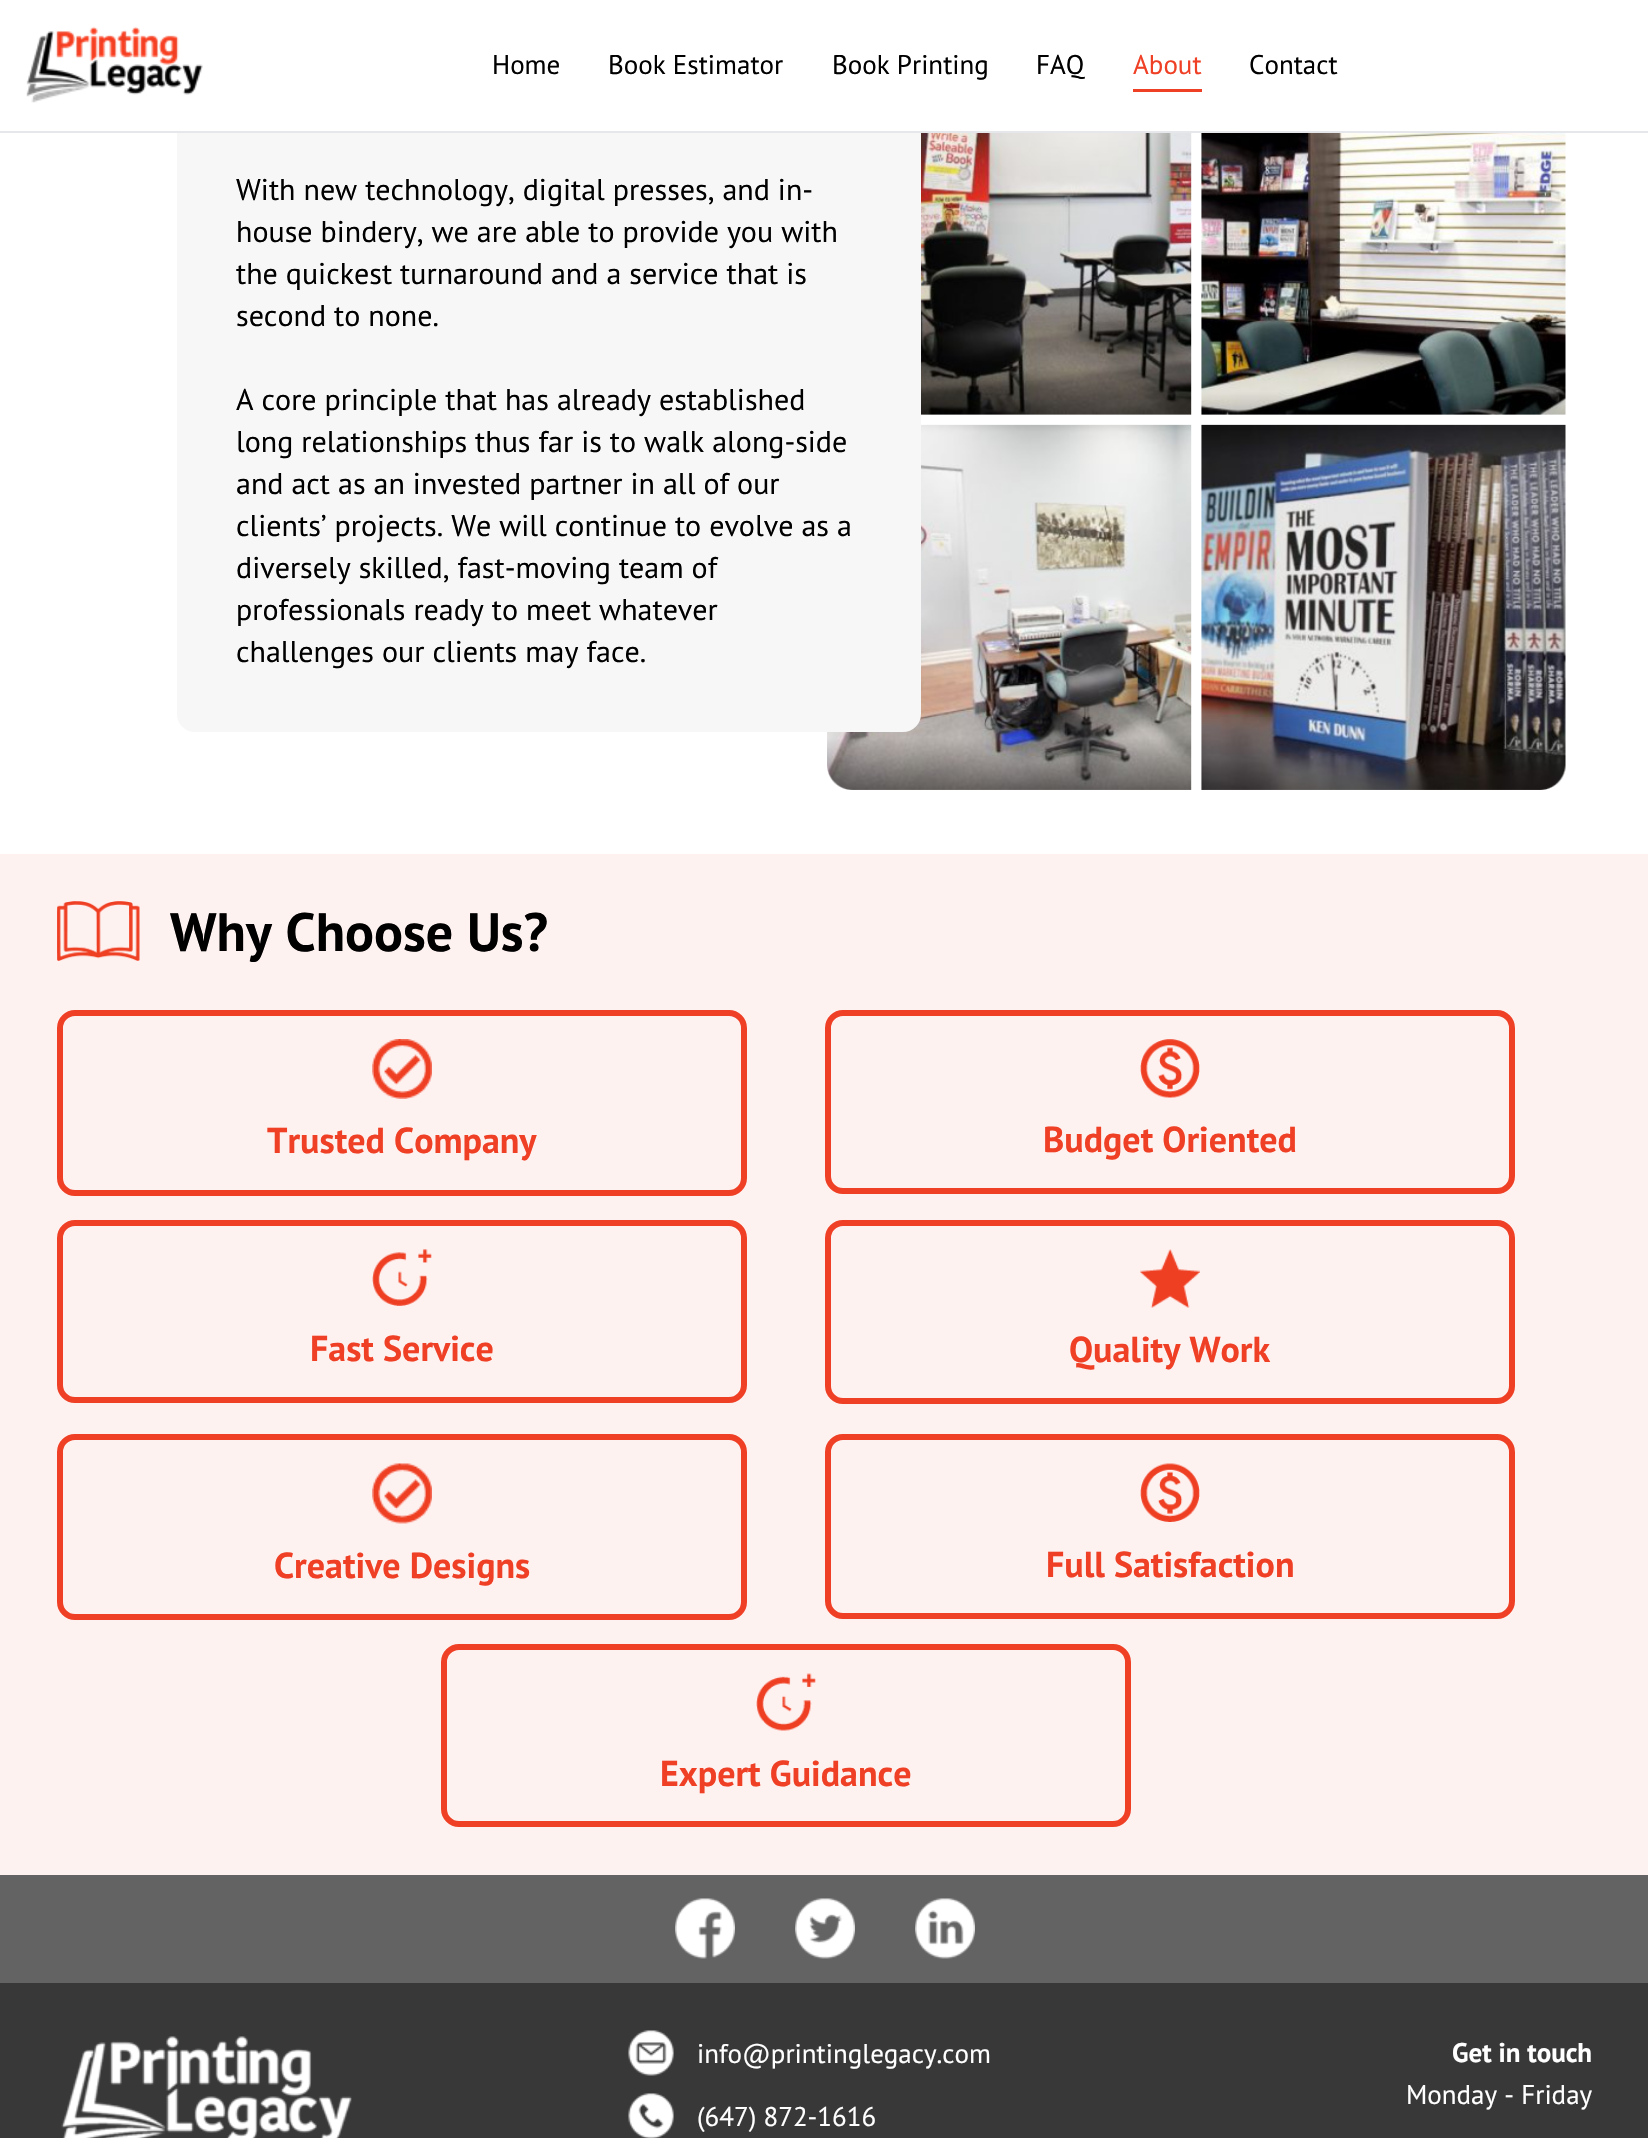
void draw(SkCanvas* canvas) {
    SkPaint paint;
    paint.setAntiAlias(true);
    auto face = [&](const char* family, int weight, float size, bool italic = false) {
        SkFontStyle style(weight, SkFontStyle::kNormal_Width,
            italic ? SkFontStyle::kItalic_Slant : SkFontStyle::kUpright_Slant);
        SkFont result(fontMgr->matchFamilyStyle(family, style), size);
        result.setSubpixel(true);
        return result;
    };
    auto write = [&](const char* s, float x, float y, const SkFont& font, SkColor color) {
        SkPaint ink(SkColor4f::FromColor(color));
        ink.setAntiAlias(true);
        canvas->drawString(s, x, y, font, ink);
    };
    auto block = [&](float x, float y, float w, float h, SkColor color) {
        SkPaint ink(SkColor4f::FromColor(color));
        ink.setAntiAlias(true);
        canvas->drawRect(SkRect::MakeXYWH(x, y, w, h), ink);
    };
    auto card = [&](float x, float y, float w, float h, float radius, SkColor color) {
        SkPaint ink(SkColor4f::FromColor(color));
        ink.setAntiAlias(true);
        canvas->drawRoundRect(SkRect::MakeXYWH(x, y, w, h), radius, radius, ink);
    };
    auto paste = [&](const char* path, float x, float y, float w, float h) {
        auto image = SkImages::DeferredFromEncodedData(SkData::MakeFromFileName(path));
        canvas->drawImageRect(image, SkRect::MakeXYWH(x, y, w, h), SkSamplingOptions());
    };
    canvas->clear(SK_ColorWHITE);
    paste("pic2.png", 827, 133, 739, 657);
    card(177, 108, 744, 624, 18, SkColorSetRGB(247, 247, 247));
    block(177, 108, 744, 23, SK_ColorWHITE);
    block(0, 131, 1648, 2, SkColorSetRGB(229, 231, 235));
    paste("pic1.png", 26, 26, 177, 77);
    auto kFont1 = face("PT Sans", 400, 27);
    write("Home", 492, 74, kFont1, SK_ColorBLACK);
    write("Book Estimator", 608, 74, kFont1, SK_ColorBLACK);
    write("Book Printing", 832, 74, kFont1, SK_ColorBLACK);
    write("FAQ", 1036, 74, kFont1, SK_ColorBLACK);
    write("About", 1133, 74, kFont1, SkColorSetRGB(239, 64, 37));
    block(1133, 89, 69, 3, SkColorSetRGB(239, 64, 37));
    write("Contact", 1249, 74, kFont1, SK_ColorBLACK);
    auto kFont2 = face("PT Sans", 400, 30);
    write("With new technology, digital presses, and in-", 236, 200, kFont2, SK_ColorBLACK);
    write("house bindery, we are able to provide you with", 236, 242, kFont2, SK_ColorBLACK);
    write("the quickest turnaround and a service that is", 236, 284, kFont2, SK_ColorBLACK);
    write("second to none.", 236, 326, kFont2, SK_ColorBLACK);
    write("A core principle that has already established", 236, 410, kFont2, SK_ColorBLACK);
    write("long relationships thus far is to walk along-side", 236, 452, kFont2, SK_ColorBLACK);
    write("and act as an invested partner in all of our", 236, 494, kFont2, SK_ColorBLACK);
    write("clients’ projects. We will continue to evolve as a", 236, 536, kFont2, SK_ColorBLACK);
    write("diversely skilled, fast-moving team of", 236, 578, kFont2, SK_ColorBLACK);
    write("professionals ready to meet whatever", 236, 620, kFont2, SK_ColorBLACK);
    write("challenges our clients may face.", 236, 662, kFont2, SK_ColorBLACK);
    block(0, 854, 1648, 1021, SkColorSetRGB(254, 242, 241));
    paste("pic3.png", 57, 901, 83, 60);
    auto kFont3 = face("PT Sans", 700, 54);
    write("Why Choose Us?", 170, 951, kFont3, SK_ColorBLACK);
    paint.setStyle(SkPaint::kStroke_Style);
    paint.setStrokeWidth(6);
    paint.setColor(SkColorSetRGB(239, 64, 37));
    canvas->drawRoundRect(SkRect::MakeXYWH(60, 1013, 684, 180), 15, 15, paint);
    paste("pic4.png", 372, 1039, 60, 60);
    auto kFont4 = face("PT Sans", 700, 36);
    write("Trusted Company", 267, 1153, kFont4, SkColorSetRGB(239, 64, 37));
    canvas->drawRoundRect(SkRect::MakeXYWH(828, 1013, 684, 178), 15, 15, paint);
    paste("pic5.png", 1140, 1039, 60, 59);
    write("Budget Oriented", 1043, 1152, kFont4, SkColorSetRGB(239, 64, 37));
    canvas->drawRoundRect(SkRect::MakeXYWH(60, 1223, 684, 177), 15, 15, paint);
    paste("pic6.png", 372, 1249, 60, 57);
    write("Fast Service", 310, 1361, kFont4, SkColorSetRGB(239, 64, 37));
    canvas->drawRoundRect(SkRect::MakeXYWH(828, 1223, 684, 178), 15, 15, paint);
    paste("pic7.png", 1140, 1249, 60, 59);
    write("Quality Work", 1069, 1362, kFont4, SkColorSetRGB(239, 64, 37));
    canvas->drawRoundRect(SkRect::MakeXYWH(60, 1437, 684, 180), 15, 15, paint);
    paste("pic8.png", 372, 1463, 60, 61);
    write("Creative Designs", 274, 1578, kFont4, SkColorSetRGB(239, 64, 37));
    canvas->drawRoundRect(SkRect::MakeXYWH(828, 1437, 684, 179), 15, 15, paint);
    paste("pic9.png", 1140, 1463, 60, 59);
    write("Full Satisfaction", 1046, 1577, kFont4, SkColorSetRGB(239, 64, 37));
    canvas->drawRoundRect(SkRect::MakeXYWH(444, 1647, 684, 177), 15, 15, paint);
    paste("pic10.png", 756, 1673, 60, 58);
    write("Expert Guidance", 660, 1786, kFont4, SkColorSetRGB(239, 64, 37));
    block(0, 1875, 1648, 108, SkColorSetRGB(99, 99, 99));
    paste("pic11.png", 675, 1898, 60, 61);
    paste("pic12.png", 795, 1898, 60, 61);
    paste("pic13.png", 915, 1898, 60, 61);
    block(0, 1983, 1648, 155, SkColorSetRGB(56, 56, 56));
    paste("pic14.png", 61, 2036, 291, 102);
    paste("pic15.png", 628, 2030, 46, 46);
    write("info@printinglegacy.com", 697, 2063, kFont1, SK_ColorWHITE);
    paste("pic16.png", 628, 2093, 46, 45);
    write("(647) 872-1616", 697, 2126, kFont1, SK_ColorWHITE);
    auto kFont5 = face("PT Sans", 700, 27);
    write("Get in touch", 1452, 2062, kFont5, SK_ColorWHITE);
    write("Monday - Friday", 1406, 2104, kFont1, SK_ColorWHITE);
}
